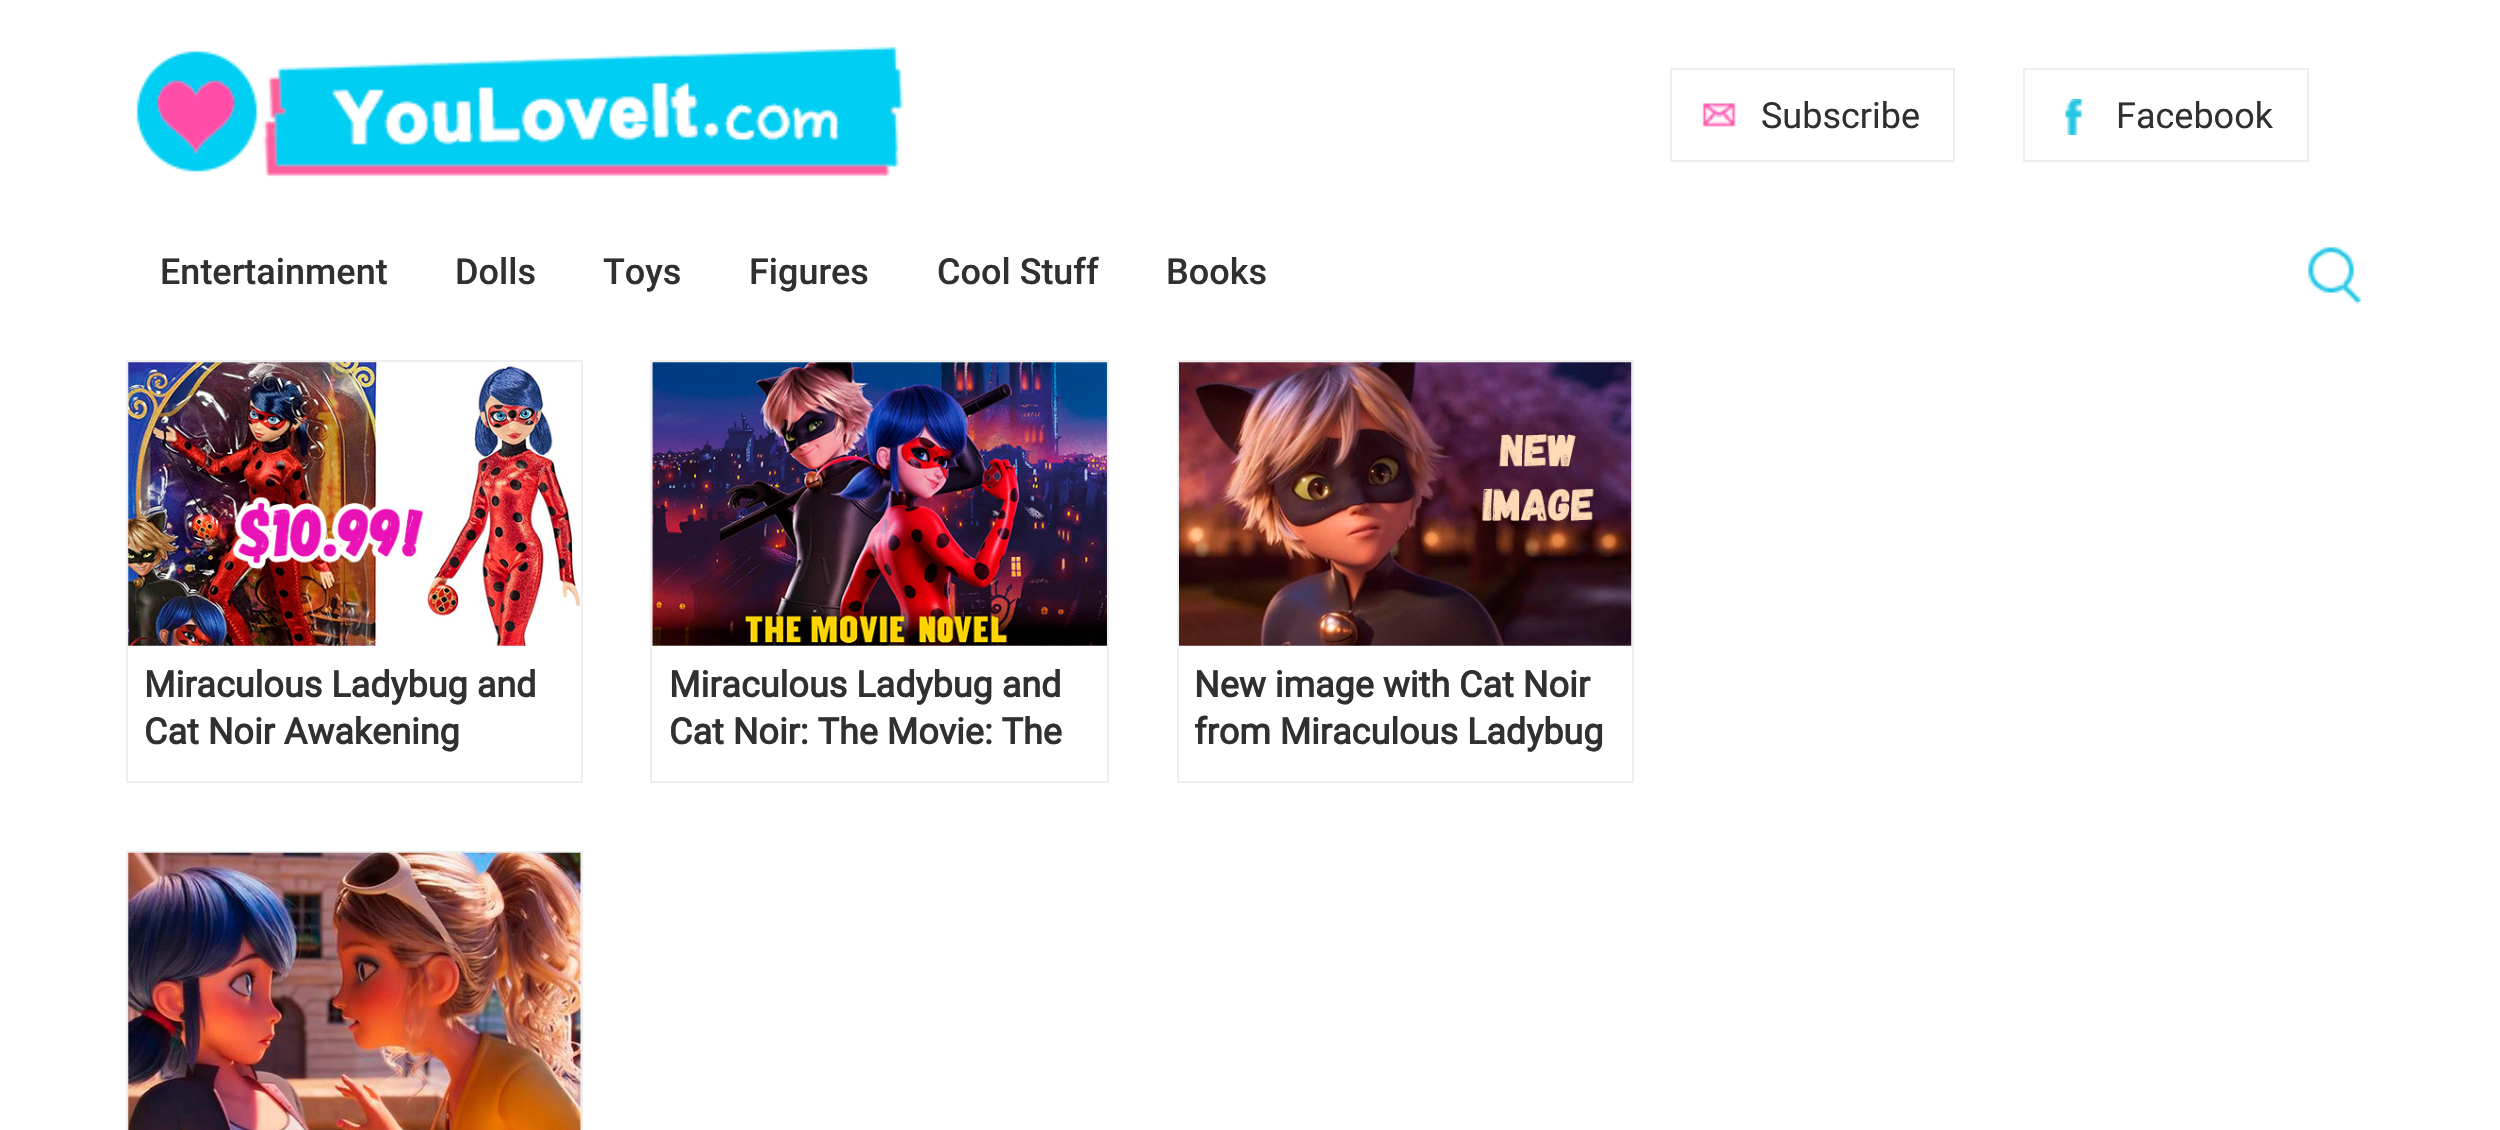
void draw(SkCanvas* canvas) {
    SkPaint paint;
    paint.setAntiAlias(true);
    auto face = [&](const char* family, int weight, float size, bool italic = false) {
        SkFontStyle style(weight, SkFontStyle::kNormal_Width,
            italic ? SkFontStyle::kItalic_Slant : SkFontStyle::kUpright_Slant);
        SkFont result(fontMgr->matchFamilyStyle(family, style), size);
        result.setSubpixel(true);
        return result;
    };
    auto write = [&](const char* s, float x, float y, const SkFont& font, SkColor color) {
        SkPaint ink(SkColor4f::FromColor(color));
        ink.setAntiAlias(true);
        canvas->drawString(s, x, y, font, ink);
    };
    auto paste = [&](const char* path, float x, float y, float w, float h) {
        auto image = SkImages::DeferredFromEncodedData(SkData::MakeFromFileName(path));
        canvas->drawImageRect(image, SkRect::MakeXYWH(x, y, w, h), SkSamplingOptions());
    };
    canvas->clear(SK_ColorWHITE);
    paste("pic1.png", 136, 46, 767, 131);
    paint.setStyle(SkPaint::kStroke_Style);
    paint.setStrokeWidth(2);
    paint.setColor(SkColorSetRGB(238, 238, 238));
    canvas->drawRect(SkRect::MakeXYWH(1671, 69, 283, 92), paint);
    paste("pic2.png", 1702, 103, 34, 24);
    auto kFont1 = face("Roboto", 400, 36);
    write("Subscribe", 1761, 128, kFont1, SkColorSetRGB(48, 48, 48));
    canvas->drawRect(SkRect::MakeXYWH(2024, 69, 284, 92), paint);
    paste("pic3.png", 2065, 99, 17, 36);
    write("Facebook", 2116, 128, kFont1, SkColorSetRGB(48, 48, 48));
    auto kFont2 = face("Roboto", 500, 36);
    write("Entertainment", 160, 284, kFont2, SkColorSetRGB(48, 48, 48));
    write("Dolls", 455, 284, kFont2, SkColorSetRGB(48, 48, 48));
    write("Toys", 603, 284, kFont2, SkColorSetRGB(48, 48, 48));
    write("Figures", 749, 284, kFont2, SkColorSetRGB(48, 48, 48));
    write("Cool Stuff", 937, 284, kFont2, SkColorSetRGB(48, 48, 48));
    write("Books", 1166, 284, kFont2, SkColorSetRGB(48, 48, 48));
    paste("pic4.png", 2308, 247, 54, 58);
    canvas->drawRect(SkRect::MakeXYWH(127, 361, 455, 421), paint);
    paste("pic5.png", 128, 362, 453, 284);
    auto kFont3 = face("Roboto", 700, 36);
    write("Miraculous Ladybug and", 144, 697, kFont3, SkColorSetRGB(48, 48, 48));
    write("Cat Noir Awakening", 144, 744, kFont3, SkColorSetRGB(48, 48, 48));
    canvas->drawRect(SkRect::MakeXYWH(651, 361, 457, 421), paint);
    paste("pic6.png", 652, 362, 455, 284);
    write("Miraculous Ladybug and", 669, 697, kFont3, SkColorSetRGB(48, 48, 48));
    write("Cat Noir: The Movie: The", 669, 744, kFont3, SkColorSetRGB(48, 48, 48));
    canvas->drawRect(SkRect::MakeXYWH(1178, 361, 455, 421), paint);
    paste("pic7.png", 1179, 362, 453, 284);
    write("New image with Cat Noir", 1194, 697, kFont3, SkColorSetRGB(48, 48, 48));
    write("from Miraculous Ladybug", 1194, 744, kFont3, SkColorSetRGB(48, 48, 48));
    canvas->drawRect(SkRect::MakeXYWH(127, 852, 455, 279), paint);
    paste("pic8.png", 128, 852, 453, 278);
}
